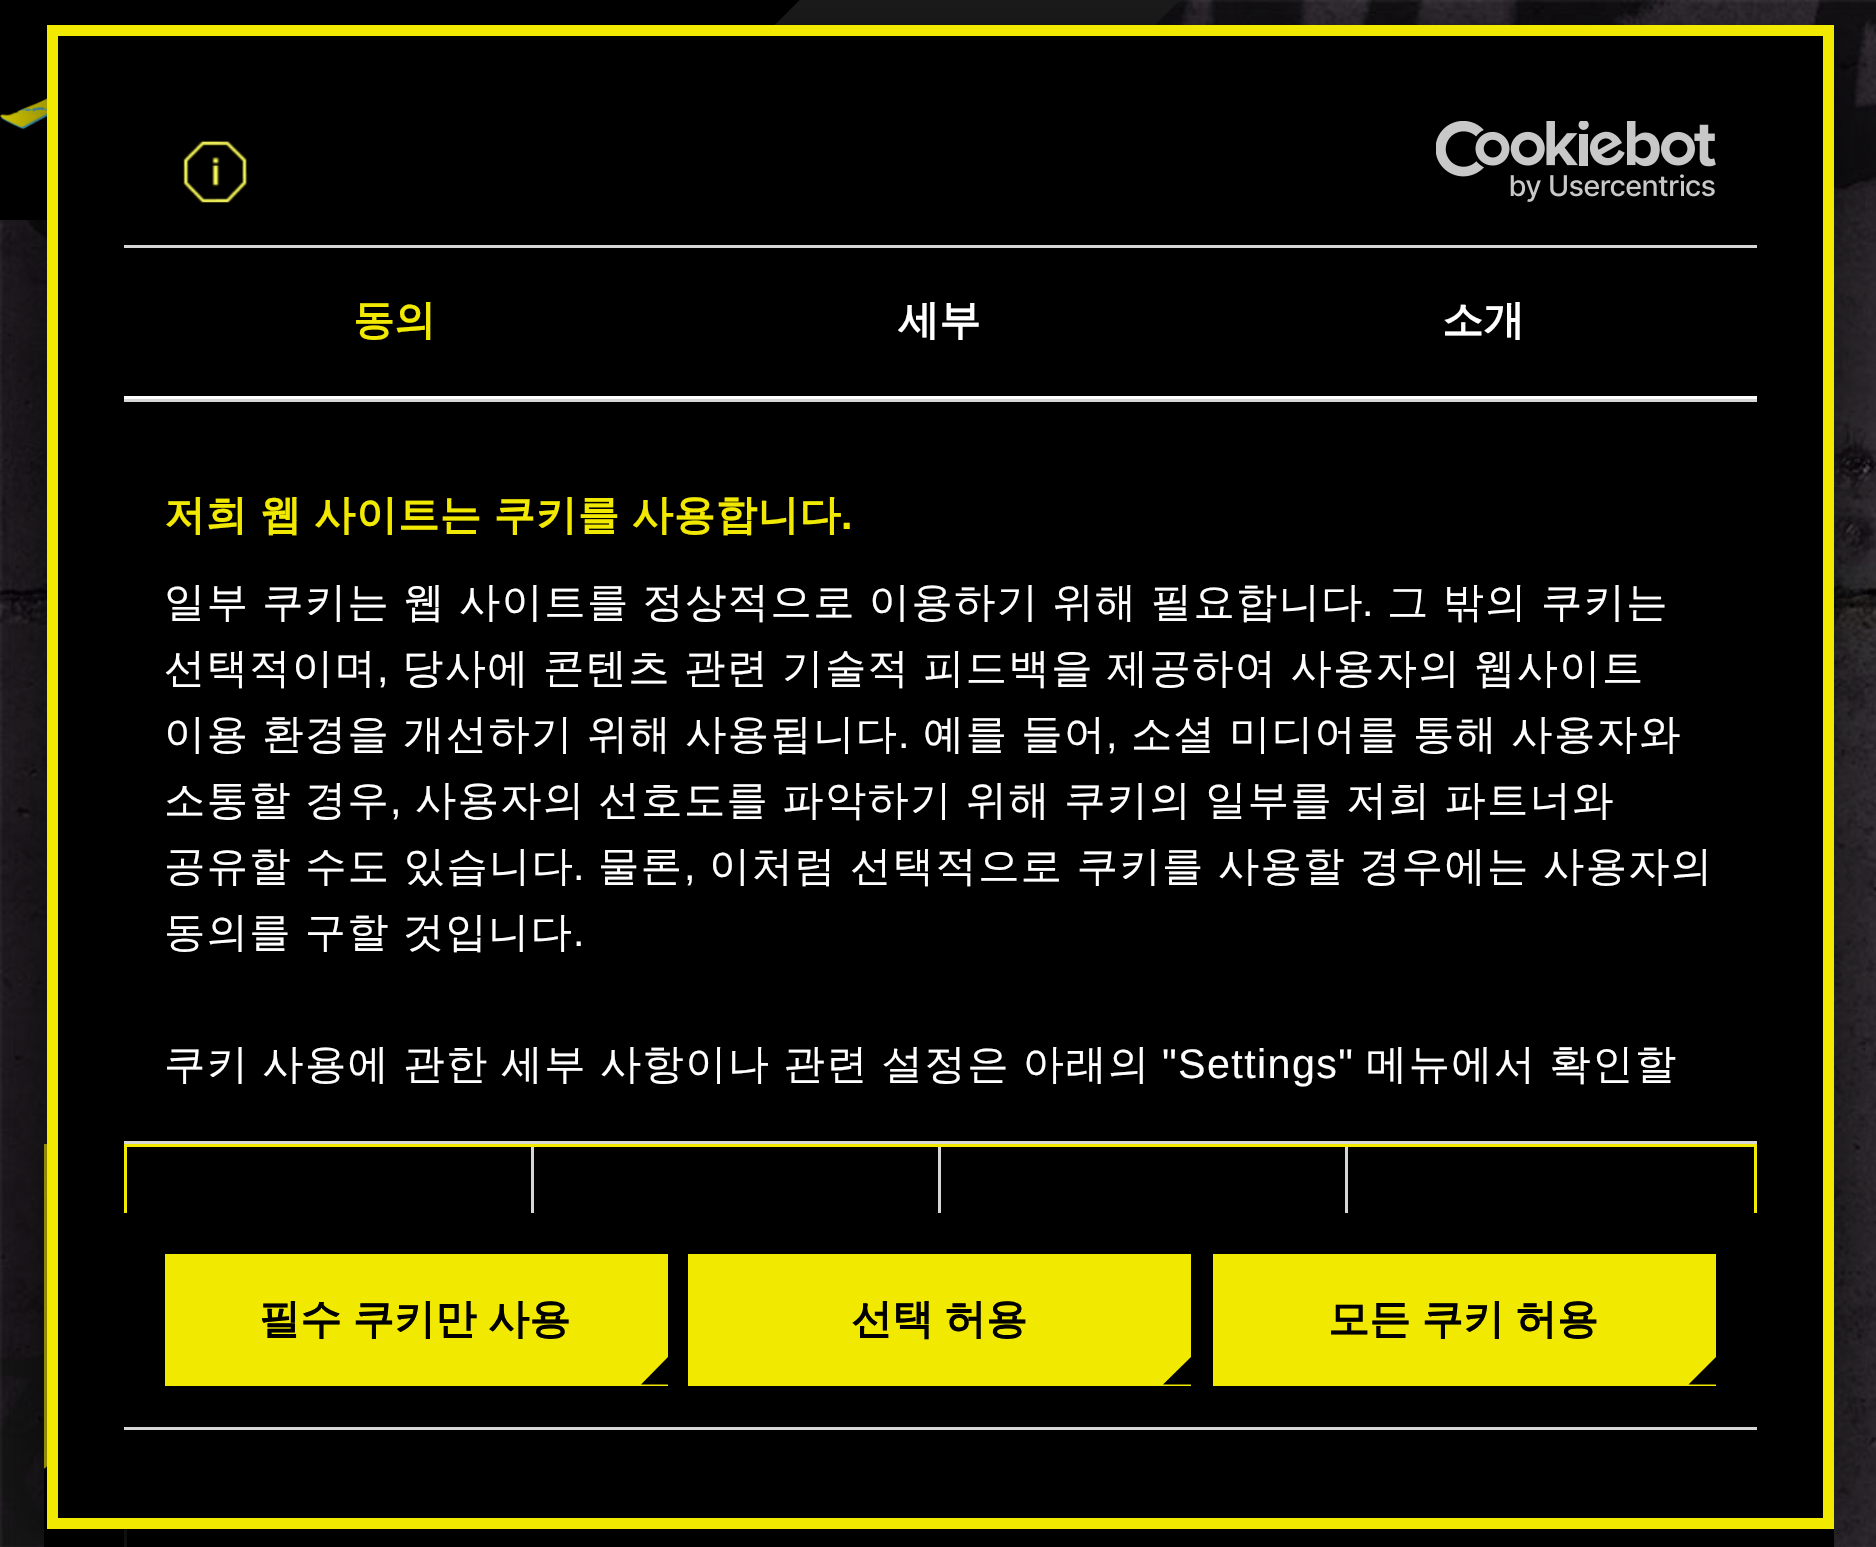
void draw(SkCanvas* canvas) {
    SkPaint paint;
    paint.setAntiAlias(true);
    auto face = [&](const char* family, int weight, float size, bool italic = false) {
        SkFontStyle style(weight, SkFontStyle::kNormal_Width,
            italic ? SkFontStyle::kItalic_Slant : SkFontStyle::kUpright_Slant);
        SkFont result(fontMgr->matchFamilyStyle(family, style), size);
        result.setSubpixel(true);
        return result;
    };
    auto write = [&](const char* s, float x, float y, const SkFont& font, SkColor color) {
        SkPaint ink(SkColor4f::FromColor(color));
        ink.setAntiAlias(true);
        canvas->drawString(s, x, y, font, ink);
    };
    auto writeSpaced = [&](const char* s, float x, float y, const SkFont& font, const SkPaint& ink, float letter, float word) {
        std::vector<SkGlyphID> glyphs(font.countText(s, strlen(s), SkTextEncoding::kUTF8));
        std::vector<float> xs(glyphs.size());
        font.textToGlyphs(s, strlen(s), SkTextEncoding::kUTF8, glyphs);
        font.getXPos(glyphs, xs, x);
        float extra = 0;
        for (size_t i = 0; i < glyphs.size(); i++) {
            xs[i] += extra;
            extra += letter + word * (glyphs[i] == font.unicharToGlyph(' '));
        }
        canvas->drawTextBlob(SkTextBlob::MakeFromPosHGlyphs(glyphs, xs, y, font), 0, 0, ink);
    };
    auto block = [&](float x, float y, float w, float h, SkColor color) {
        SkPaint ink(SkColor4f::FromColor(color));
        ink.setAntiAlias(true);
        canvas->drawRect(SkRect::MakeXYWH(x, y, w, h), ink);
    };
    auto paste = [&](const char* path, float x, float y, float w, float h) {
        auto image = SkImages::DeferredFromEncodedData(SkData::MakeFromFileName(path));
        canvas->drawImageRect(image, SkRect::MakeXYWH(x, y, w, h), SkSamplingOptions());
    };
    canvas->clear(SK_ColorWHITE);
    paste("pic1.png", 0, 0, 1876, 1547);
    block(0, 0, 580, 220, SK_ColorBLACK);
    paste("pic2.png", 0, 98, 47, 32);
    block(775, 0, 185, 25, SkColorSetRGB(32, 32, 32));
    paint.setColor(SK_ColorBLACK);
    canvas->drawPath(SkPathBuilder().moveTo(580, 0).lineTo(800, 0).lineTo(580, 220).close().detach(), paint);
    paint.setColor(SkColorSetRGB(32, 32, 32));
    canvas->drawPath(SkPathBuilder().moveTo(800, 0).lineTo(800, 220).lineTo(580, 220).close().detach(), paint);
    canvas->drawPath(SkPathBuilder().moveTo(960, 0).lineTo(1180, 0).lineTo(960, 220).close().detach(), paint);
    block(44, 1144, 3, 325, SkColorSetRGB(252, 238, 10));
    paste("pic3.png", 44, 1466, 3, 22);
    block(44, 1488, 1790, 59, SK_ColorBLACK);
    block(124, 1529, 3, 18, SkColorSetRGB(32, 32, 32));
    paint.setColor(SkColorSetARGB(209, 0, 0, 0));
    paint.setMaskFilter(SkMaskFilter::MakeBlur(kNormal_SkBlurStyle, 60.5f));
    canvas->drawRect(SkRect::MakeXYWH(41, 52, 1799, 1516), paint);
    paint.setMaskFilter(nullptr);
    block(58, 36, 1765, 1452, SK_ColorBLACK);
    paint.setStyle(SkPaint::kStroke_Style);
    paint.setStrokeWidth(11);
    paint.setColor(SkColorSetRGB(242, 233, 0));
    canvas->drawRect(SkRect::MakeXYWH(52.5f, 30.5f, 1776, 1493), paint);
    block(124, 245, 1633, 3, SkColorSetRGB(214, 214, 214));
    paste("pic4.png", 183, 140, 65, 63);
    paste("pic5.png", 1436, 121, 280, 81);
    block(124, 399, 1633, 3, SkColorSetRGB(214, 214, 214));
    block(124, 396, 1633, 3, SK_ColorWHITE);
    auto kFont1 = face("WenQuanYi Zen Hei", 700, 41.25f);
    write("동의", 353, 334, kFont1, SkColorSetRGB(242, 233, 0));
    write("세부", 898, 334, kFont1, SK_ColorWHITE);
    write("소개", 1442, 334, kFont1, SK_ColorWHITE);
    block(124, 1141, 1633, 3, SkColorSetRGB(214, 214, 214));
    paint.setStyle(SkPaint::kFill_Style);
    writeSpaced("저희 웹 사이트는 쿠키를 사용합니다", 164, 529, kFont1, paint, 0.7f, -1);
    auto kFont2 = face("Liberation Sans", 700, 41.25f);
    writeSpaced(".", 841, 529, kFont2, paint, 0.7f, 0);
    auto kFont3 = face("WenQuanYi Zen Hei", 500, 41.25f);
    paint.setColor(SK_ColorWHITE);
    writeSpaced("일부 쿠키는 웹 사이트를 정상적으로 이용하기 위해 필요합니다", 164, 616, kFont3, paint, 1.4f, -0.75f);
    auto kFont4 = face("Liberation Sans", 400, 41.25f);
    writeSpaced(".", 1362, 616, kFont4, paint, 1.4f, 0);
    writeSpaced("그 밖의 쿠키는", 1387, 616, kFont3, paint, 1.4f, -0.75f);
    writeSpaced("선택적이며", 164, 682, kFont3, paint, 1.4f, 0);
    writeSpaced(",", 377, 682, kFont4, paint, 1.4f, 0);
    writeSpaced("당사에 콘텐츠 관련 기술적 피드백을 제공하여 사용자의 웹사이트", 402, 682, kFont3, paint, 1.4f, -0.75f);
    writeSpaced("이용 환경을 개선하기 위해 사용됩니다", 164, 748, kFont3, paint, 1.4f, -0.75f);
    writeSpaced(".", 898, 748, kFont4, paint, 1.4f, 0);
    writeSpaced("예를 들어", 923, 748, kFont3, paint, 1.4f, -0.75f);
    writeSpaced(",", 1106, 748, kFont4, paint, 1.4f, 0);
    writeSpaced("소셜 미디어를 통해 사용자와", 1131, 748, kFont3, paint, 1.4f, -0.75f);
    writeSpaced("소통할 경우", 164, 814, kFont3, paint, 1.4f, -0.75f);
    writeSpaced(",", 390, 814, kFont4, paint, 1.4f, 0);
    writeSpaced("사용자의 선호도를 파악하기 위해 쿠키의 일부를 저희 파트너와", 415, 814, kFont3, paint, 1.4f, -0.75f);
    writeSpaced("공유할 수도 있습니다", 164, 880, kFont3, paint, 1.4f, -0.5f);
    writeSpaced(".", 573, 880, kFont4, paint, 1.4f, 0);
    writeSpaced("물론", 598, 880, kFont3, paint, 1.4f, 0);
    writeSpaced(",", 684, 880, kFont4, paint, 1.4f, 0);
    writeSpaced("이처럼 선택적으로 쿠키를 사용할 경우에는 사용자의", 709, 880, kFont3, paint, 1.4f, -0.5f);
    writeSpaced("동의를 구할 것입니다", 164, 946, kFont3, paint, 1.4f, -1);
    writeSpaced(".", 573, 946, kFont4, paint, 1.4f, 0);
    writeSpaced("쿠키 사용에 관한 세부 사항이나 관련 설정은 아래의", 164, 1078, kFont3, paint, 1.4f, -0.75f);
    writeSpaced("\"Settings\"", 1162, 1078, kFont4, paint, 1.4f, 0);
    writeSpaced("메뉴에서 확인할", 1366, 1078, kFont3, paint, 1.4f, -0.75f);
    canvas->save();
    canvas->clipRect(SkRect::MakeXYWH(124, 402, 1633, 811));
    paint.setStyle(SkPaint::kStroke_Style);
    paint.setStrokeWidth(3);
    paint.setColor(SkColorSetRGB(242, 233, 0));
    canvas->drawRect(SkRect::MakeXYWH(125.5f, 1145.5f, 1630, 311), paint);
    canvas->restore();
    block(531, 1147, 3, 66, SkColorSetRGB(214, 214, 214));
    block(938, 1147, 3, 66, SkColorSetRGB(214, 214, 214));
    block(1345, 1147, 3, 66, SkColorSetRGB(214, 214, 214));
    block(124, 1427, 1633, 3, SkColorSetRGB(214, 214, 214));
    block(165, 1254, 503, 132, SkColorSetRGB(242, 233, 0));
    paint.setStyle(SkPaint::kFill_Style);
    paint.setColor(SK_ColorBLACK);
    writeSpaced("필수 쿠키만 사용", 259, 1333, kFont1, paint, 0, -1);
    canvas->drawPath(SkPathBuilder().moveTo(668, 1384.5f).lineTo(641, 1384.5f).lineTo(668, 1357).close().detach(), paint);
    block(688, 1254, 503, 132, SkColorSetRGB(242, 233, 0));
    writeSpaced("선택 허용", 851, 1333, kFont1, paint, 0, -1);
    canvas->drawPath(SkPathBuilder().moveTo(1191, 1384.5f).lineTo(1163, 1384.5f).lineTo(1191, 1357).close().detach(), paint);
    block(1213, 1254, 503, 132, SkColorSetRGB(242, 233, 0));
    writeSpaced("모든 쿠키 허용", 1328, 1333, kFont1, paint, 0, -1);
    canvas->drawPath(SkPathBuilder().moveTo(1716, 1384.5f).lineTo(1688.5f, 1384.5f).lineTo(1716, 1357).close().detach(), paint);
}
